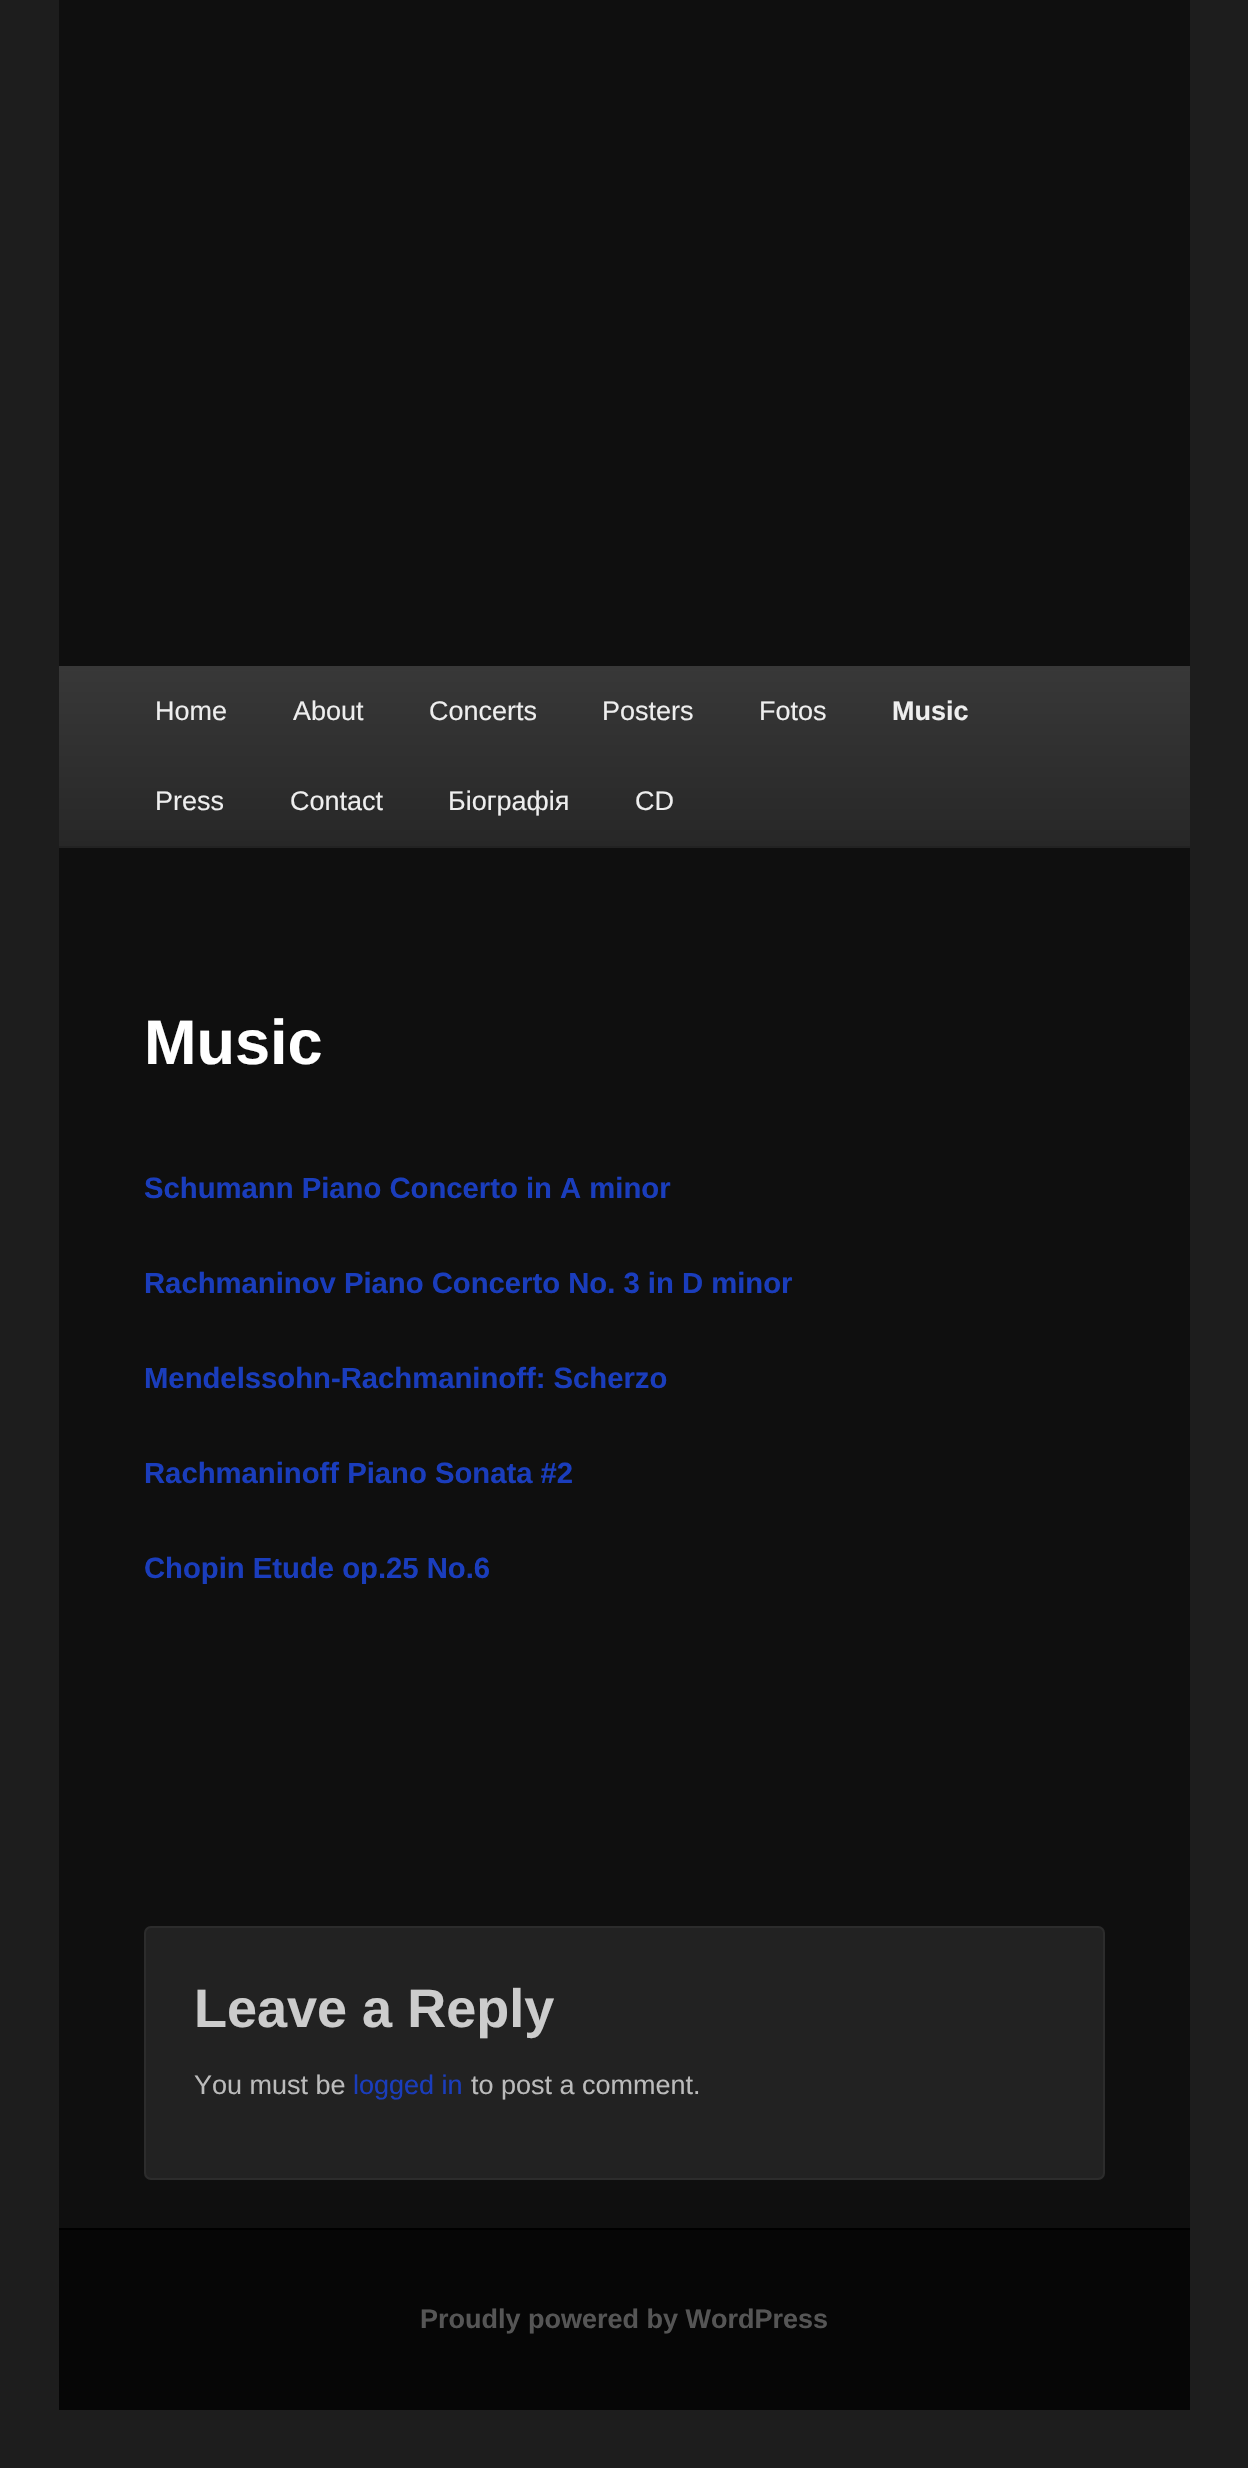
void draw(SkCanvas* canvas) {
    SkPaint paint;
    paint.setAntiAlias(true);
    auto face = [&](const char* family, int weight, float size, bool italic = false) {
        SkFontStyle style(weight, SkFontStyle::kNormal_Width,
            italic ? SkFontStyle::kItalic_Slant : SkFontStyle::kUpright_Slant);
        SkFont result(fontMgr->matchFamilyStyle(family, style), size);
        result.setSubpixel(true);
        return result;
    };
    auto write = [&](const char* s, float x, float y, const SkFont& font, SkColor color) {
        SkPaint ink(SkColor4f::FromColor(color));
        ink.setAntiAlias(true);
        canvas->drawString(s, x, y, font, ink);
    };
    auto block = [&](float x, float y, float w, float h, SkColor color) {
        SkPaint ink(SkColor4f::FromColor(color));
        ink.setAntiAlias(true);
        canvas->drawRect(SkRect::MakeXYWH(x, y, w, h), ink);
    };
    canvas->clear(SkColorSetRGB(29, 29, 29));
    block(59, 0, 1131, 2228, SkColorSetRGB(15, 15, 15));
    {
        const SkColor colors[] = {SkColorSetRGB(56, 56, 56), SkColorSetRGB(39, 39, 39)};
        const float stops[] = {0, 1};
        const SkPoint ends[] = {{624, 666}, {624, 846}};
        paint.setShader(SkGradientShader::MakeLinear(ends, colors, stops, 2, SkTileMode::kClamp));
        paint.setAlpha(255);
    }
    canvas->drawRect(SkRect::MakeXYWH(59, 666, 1131, 180), paint);
    block(59, 846, 1131, 2, SkColorSetRGB(34, 34, 34));
    auto kFont1 = face("Liberation Sans", 400, 27);
    write("Home", 155, 720, kFont1, SkColorSetRGB(238, 238, 238));
    write("About", 293, 720, kFont1, SkColorSetRGB(238, 238, 238));
    write("Concerts", 429, 720, kFont1, SkColorSetRGB(238, 238, 238));
    write("Posters", 602, 720, kFont1, SkColorSetRGB(238, 238, 238));
    write("Fotos", 759, 720, kFont1, SkColorSetRGB(238, 238, 238));
    auto kFont2 = face("Liberation Sans", 700, 27);
    write("Music", 892, 720, kFont2, SkColorSetRGB(238, 238, 238));
    write("Press", 155, 810, kFont1, SkColorSetRGB(238, 238, 238));
    write("Contact", 290, 810, kFont1, SkColorSetRGB(238, 238, 238));
    write("Біографія", 448, 810, kFont1, SkColorSetRGB(238, 238, 238));
    write("CD", 635, 810, kFont1, SkColorSetRGB(238, 238, 238));
    auto kFont3 = face("Liberation Sans", 700, 63);
    write("Music", 144, 1064, kFont3, SK_ColorWHITE);
    auto kFont4 = face("Liberation Sans", 700, 29.25f);
    write("Schumann Piano Concerto in A minor", 144, 1198, kFont4, SkColorSetRGB(26, 61, 188));
    write("Rachmaninov Piano Concerto No. 3 in D minor", 144, 1293, kFont4, SkColorSetRGB(26, 61, 188));
    write("Mendelssohn-Rachmaninoff: Scherzo", 144, 1388, kFont4, SkColorSetRGB(26, 61, 188));
    write("Rachmaninoff Piano Sonata #2", 144, 1483, kFont4, SkColorSetRGB(26, 61, 188));
    write("Chopin Etude op.25 No.6", 144, 1578, kFont4, SkColorSetRGB(26, 61, 188));
    paint.setShader(nullptr);
    paint.setColor(SkColorSetRGB(34, 34, 34));
    canvas->drawRoundRect(SkRect::MakeXYWH(145, 1927, 959, 252), 6, 6, paint);
    paint.setStyle(SkPaint::kStroke_Style);
    paint.setStrokeWidth(2);
    paint.setColor(SkColorSetRGB(44, 44, 44));
    canvas->drawRoundRect(SkRect::MakeXYWH(145, 1927, 959, 252), 6, 6, paint);
    auto kFont5 = face("Liberation Sans", 700, 54);
    write("Leave a Reply", 194, 2027, kFont5, SkColorSetRGB(204, 204, 204));
    write("You must be", 194, 2094, kFont1, SkColorSetRGB(187, 187, 187));
    write("logged in", 353, 2094, kFont1, SkColorSetRGB(26, 61, 188));
    write("to post a comment.", 471, 2094, kFont1, SkColorSetRGB(187, 187, 187));
    block(59, 2230, 1131, 180, SkColorSetRGB(6, 6, 6));
    block(59, 2228, 1131, 2, SK_ColorBLACK);
    write("Proudly powered by WordPress", 420, 2328, kFont2, SkColorSetRGB(85, 85, 85));
}
